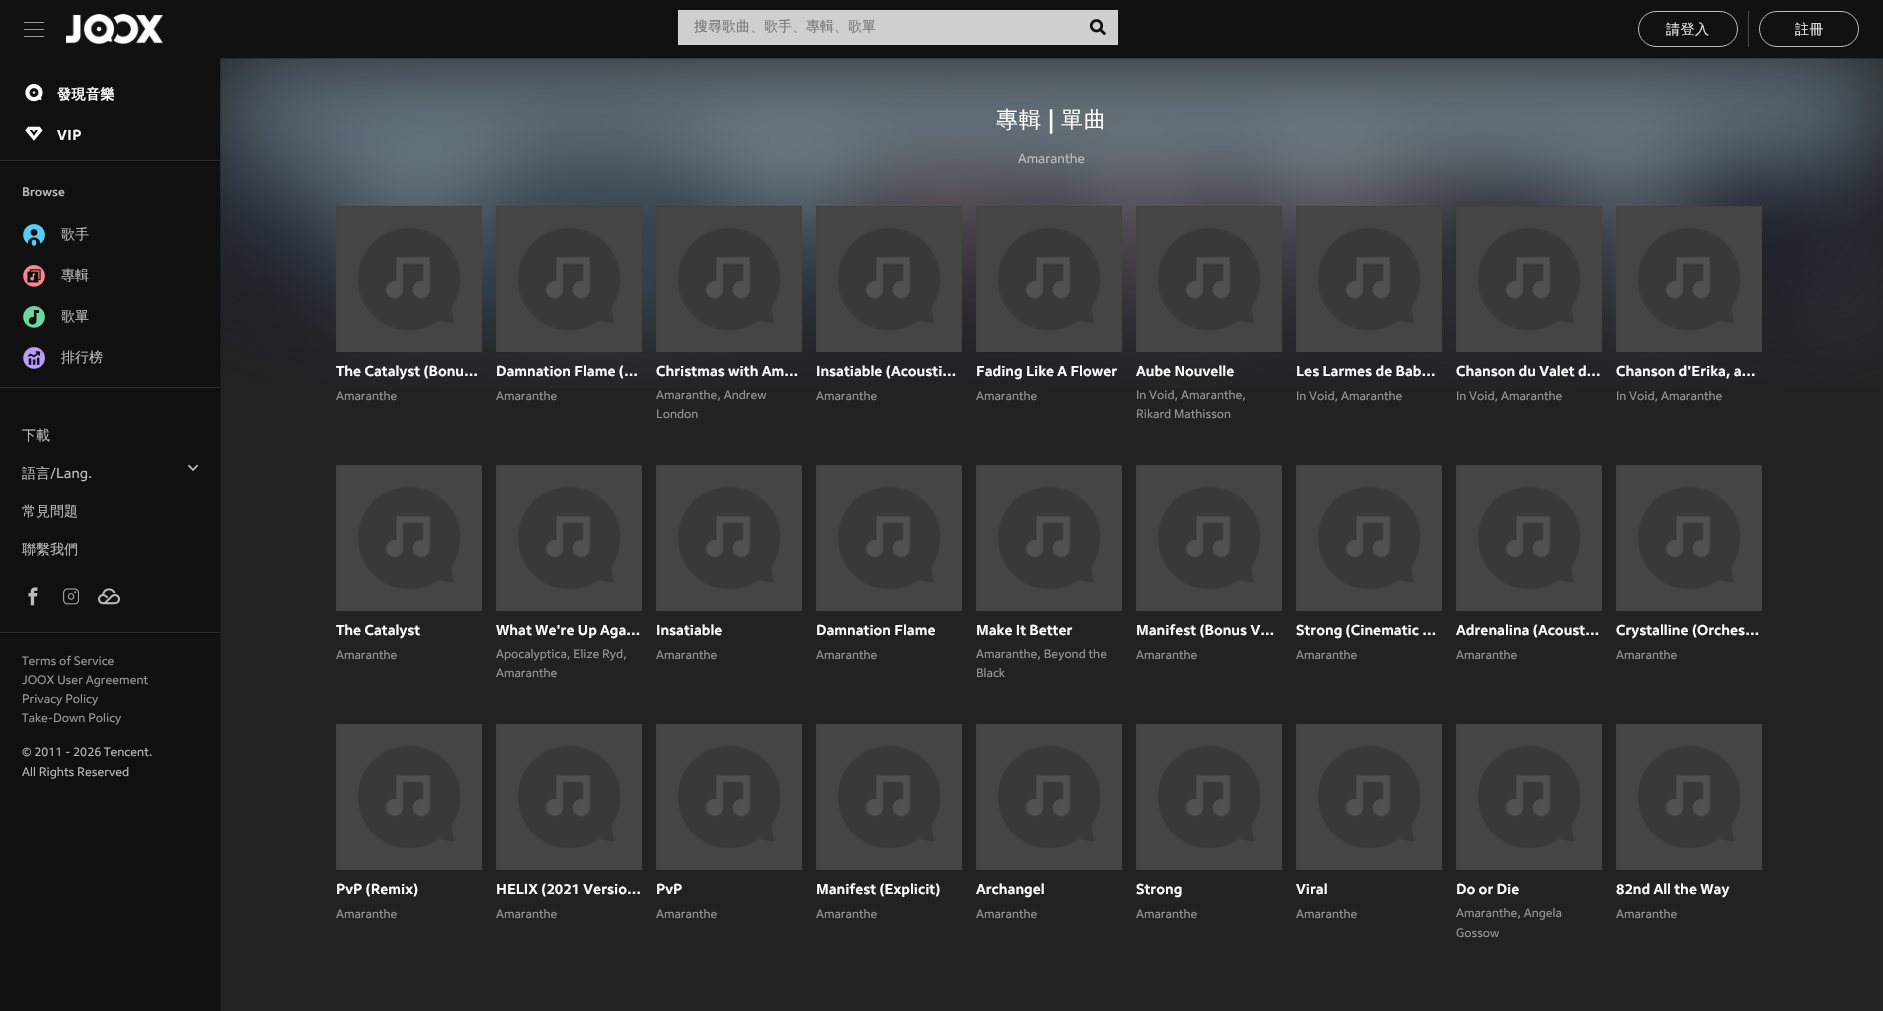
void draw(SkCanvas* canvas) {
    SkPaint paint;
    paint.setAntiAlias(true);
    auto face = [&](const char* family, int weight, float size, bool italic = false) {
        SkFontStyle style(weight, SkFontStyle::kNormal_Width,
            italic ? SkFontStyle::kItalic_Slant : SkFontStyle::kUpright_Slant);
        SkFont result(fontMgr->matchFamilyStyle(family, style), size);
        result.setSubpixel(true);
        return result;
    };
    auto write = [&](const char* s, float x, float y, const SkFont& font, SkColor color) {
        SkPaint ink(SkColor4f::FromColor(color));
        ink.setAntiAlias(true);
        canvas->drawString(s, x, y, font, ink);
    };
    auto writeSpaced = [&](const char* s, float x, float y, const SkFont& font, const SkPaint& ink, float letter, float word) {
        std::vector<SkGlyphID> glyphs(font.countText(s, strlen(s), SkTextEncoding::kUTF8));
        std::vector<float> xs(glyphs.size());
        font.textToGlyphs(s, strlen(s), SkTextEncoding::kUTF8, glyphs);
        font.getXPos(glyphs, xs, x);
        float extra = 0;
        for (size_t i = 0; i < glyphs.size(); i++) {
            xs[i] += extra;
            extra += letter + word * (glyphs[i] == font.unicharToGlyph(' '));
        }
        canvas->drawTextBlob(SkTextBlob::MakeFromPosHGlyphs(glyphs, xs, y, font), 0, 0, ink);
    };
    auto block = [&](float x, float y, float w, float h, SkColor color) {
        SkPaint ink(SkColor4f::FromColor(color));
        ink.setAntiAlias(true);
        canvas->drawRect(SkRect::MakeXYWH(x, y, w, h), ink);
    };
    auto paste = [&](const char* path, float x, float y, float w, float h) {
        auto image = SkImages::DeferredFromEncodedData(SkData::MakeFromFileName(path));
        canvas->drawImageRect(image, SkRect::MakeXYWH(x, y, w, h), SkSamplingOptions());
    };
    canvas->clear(SkColorSetRGB(34, 34, 34));
    paste("pic13.png", 220, 58, 1663, 330);
    paint.setColor(SkColorSetARGB(51, 0, 0, 0));
    paint.setMaskFilter(SkMaskFilter::MakeBlur(kNormal_SkBlurStyle, 0.5f));
    canvas->drawRect(SkRect::MakeXYWH(0, 1, 1883, 58), paint);
    paint.setMaskFilter(nullptr);
    block(0, 0, 1883, 58, SkColorSetRGB(17, 17, 17));
    block(24, 22, 20, 1, SkColorSetRGB(155, 155, 155));
    block(24, 29, 20, 1, SkColorSetRGB(155, 155, 155));
    block(24, 36, 20, 1, SkColorSetRGB(155, 155, 155));
    paste("pic1.png", 66, 14, 97, 30);
    paint.setColor(SkColorSetRGB(207, 207, 207));
    canvas->drawRect(SkRect::MakeXYWH(678.5f, 10.5f, 439, 34), paint);
    paint.setStyle(SkPaint::kStroke_Style);
    paint.setStrokeWidth(1);
    paint.setColor(SkColorSetRGB(212, 212, 212));
    canvas->drawRect(SkRect::MakeXYWH(678.5f, 10.5f, 439, 34), paint);
    auto kFont1 = face("WenQuanYi Zen Hei", 500, 14);
    write("搜尋歌曲、歌手、專輯、歌單", 694, 31, kFont1, SkColorSetRGB(117, 117, 117));
    paste("pic2.png", 1089, 19, 17, 17);
    paint.setColor(SkColorSetRGB(188, 188, 188));
    canvas->drawRoundRect(SkRect::MakeXYWH(1638.5f, 11.5f, 99, 35), 17.5f, 17.5f, paint);
    paint.setStyle(SkPaint::kFill_Style);
    paint.setColor(SkColorSetRGB(229, 229, 229));
    writeSpaced("請登入", 1666, 34, kFont1, paint, 0.5f, 0);
    block(1748, 11, 1, 36, SkColorSetRGB(74, 74, 74));
    paint.setStyle(SkPaint::kStroke_Style);
    paint.setColor(SkColorSetRGB(188, 188, 188));
    canvas->drawRoundRect(SkRect::MakeXYWH(1759.5f, 11.5f, 99, 35), 17.5f, 17.5f, paint);
    paint.setStyle(SkPaint::kFill_Style);
    paint.setColor(SkColorSetRGB(229, 229, 229));
    writeSpaced("註冊", 1795, 34, kFont1, paint, 0.5f, 0);
    paint.setColor(SkColorSetARGB(51, 0, 0, 0));
    paint.setMaskFilter(SkMaskFilter::MakeBlur(kNormal_SkBlurStyle, 0.5f));
    canvas->drawRect(SkRect::MakeXYWH(1, 58, 220, 953), paint);
    paint.setMaskFilter(nullptr);
    block(0, 58, 220, 953, SkColorSetRGB(16, 16, 16));
    block(0, 160, 220, 1, SkColorSetRGB(43, 43, 43));
    paste("pic3.png", 25, 84, 18, 18);
    auto kFont2 = face("WenQuanYi Zen Hei", 700, 14);
    paint.setColor(SK_ColorWHITE);
    writeSpaced("發現音樂", 57, 99, kFont2, paint, 0.5f, 0);
    paste("pic4.png", 25, 126, 18, 15);
    auto kFont3 = face("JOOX", 700, 14);
    writeSpaced("VIP", 57, 140, kFont3, paint, 0.5f, 0);
    block(0, 387, 220, 1, SkColorSetRGB(43, 43, 43));
    auto kFont4 = face("JOOX", 500, 12);
    write("Browse", 22, 196, kFont4, SkColorSetRGB(188, 188, 188));
    paste("pic5.png", 23, 224, 22, 22);
    write("歌手", 61, 239, kFont1, SkColorSetRGB(188, 188, 188));
    paste("pic6.png", 23, 265, 22, 22);
    write("專輯", 61, 280, kFont1, SkColorSetRGB(188, 188, 188));
    paste("pic7.png", 23, 306, 22, 22);
    write("歌單", 61, 321, kFont1, SkColorSetRGB(188, 188, 188));
    paste("pic8.png", 23, 347, 22, 22);
    write("排行榜", 61, 362, kFont1, SkColorSetRGB(188, 188, 188));
    block(0, 632, 220, 1, SkColorSetRGB(43, 43, 43));
    write("下載", 22, 440, kFont1, SkColorSetRGB(188, 188, 188));
    write("語言", 22, 478, kFont1, SkColorSetRGB(188, 188, 188));
    auto kFont5 = face("JOOX", 400, 14);
    write("/Lang.", 50, 478, kFont5, SkColorSetRGB(188, 188, 188));
    paste("pic9.png", 187, 464, 12, 7);
    write("常見問題", 22, 516, kFont1, SkColorSetRGB(188, 188, 188));
    write("聯繫我們", 22, 554, kFont1, SkColorSetRGB(188, 188, 188));
    paste("pic10.png", 28, 587, 10, 19);
    paste("pic11.png", 63, 588, 16, 17);
    paste("pic12.png", 98, 588, 22, 17);
    auto kFont6 = face("JOOX", 400, 12);
    write("Terms of Service", 22, 665, kFont6, SkColorSetRGB(149, 149, 149));
    write("JOOX User Agreement", 22, 684, kFont6, SkColorSetRGB(149, 149, 149));
    write("Privacy Policy", 22, 703, kFont6, SkColorSetRGB(149, 149, 149));
    write("Take-Down Policy", 22, 722, kFont6, SkColorSetRGB(149, 149, 149));
    write("© 2011 - 2026 Tencent.", 22, 756, kFont6, SkColorSetRGB(181, 181, 181));
    write("All Rights Reserved", 22, 776, kFont6, SkColorSetRGB(181, 181, 181));
    auto kFont7 = face("WenQuanYi Zen Hei", 500, 22);
    writeSpaced("專輯", 996, 127, kFont7, paint, 1, 0);
    auto kFont8 = face("JOOX", 500, 22);
    writeSpaced("|", 1048, 127, kFont8, paint, 1, 0);
    writeSpaced("單曲", 1061, 127, kFont7, paint, 1, 0);
    auto kFont9 = face("JOOX", 400, 13);
    write("Amaranthe", 1018, 163, kFont9, SkColorSetRGB(188, 188, 188));
    paste("pic14.png", 336, 206, 146, 146);
    write("The Catalyst (Bonu…", 336, 376, kFont3, SK_ColorWHITE);
    auto kFont10 = face("JOOX", 400, 11.9f);
    write("Amaranthe", 336, 400, kFont10, SkColorSetRGB(149, 149, 149));
    paste("pic14.png", 496, 206, 146, 146);
    write("Damnation Flame (…", 496, 376, kFont3, SK_ColorWHITE);
    write("Amaranthe", 496, 400, kFont10, SkColorSetRGB(149, 149, 149));
    paste("pic14.png", 656, 206, 146, 146);
    write("Christmas with Am…", 656, 376, kFont3, SK_ColorWHITE);
    write("Amaranthe, Andrew", 656, 399, kFont10, SkColorSetRGB(149, 149, 149));
    write("London", 656, 418, kFont10, SkColorSetRGB(149, 149, 149));
    paste("pic14.png", 816, 206, 146, 146);
    write("Insatiable (Acousti…", 816, 376, kFont3, SK_ColorWHITE);
    write("Amaranthe", 816, 400, kFont10, SkColorSetRGB(149, 149, 149));
    paste("pic15.png", 976, 206, 146, 146);
    write("Fading Like A Flower", 976, 376, kFont3, SK_ColorWHITE);
    write("Amaranthe", 976, 400, kFont10, SkColorSetRGB(149, 149, 149));
    paste("pic16.png", 1136, 206, 146, 146);
    write("Aube Nouvelle", 1136, 376, kFont3, SK_ColorWHITE);
    write("In Void, Amaranthe,", 1136, 399, kFont10, SkColorSetRGB(149, 149, 149));
    write("Rikard Mathisson", 1136, 418, kFont10, SkColorSetRGB(149, 149, 149));
    paste("pic14.png", 1296, 206, 146, 146);
    write("Les Larmes de Bab…", 1296, 376, kFont3, SK_ColorWHITE);
    write("In Void, Amaranthe", 1296, 400, kFont10, SkColorSetRGB(149, 149, 149));
    paste("pic14.png", 1456, 206, 146, 146);
    write("Chanson du Valet d…", 1456, 376, kFont3, SK_ColorWHITE);
    write("In Void, Amaranthe", 1456, 400, kFont10, SkColorSetRGB(149, 149, 149));
    paste("pic14.png", 1616, 206, 146, 146);
    write("Chanson d'Erika, a…", 1616, 376, kFont3, SK_ColorWHITE);
    write("In Void, Amaranthe", 1616, 400, kFont10, SkColorSetRGB(149, 149, 149));
    paste("pic14.png", 336, 465, 146, 146);
    write("The Catalyst", 336, 635, kFont3, SK_ColorWHITE);
    write("Amaranthe", 336, 659, kFont10, SkColorSetRGB(149, 149, 149));
    paste("pic14.png", 496, 465, 146, 146);
    write("What We're Up Aga…", 496, 635, kFont3, SK_ColorWHITE);
    write("Apocalyptica, Elize Ryd,", 496, 658, kFont10, SkColorSetRGB(149, 149, 149));
    write("Amaranthe", 496, 677, kFont10, SkColorSetRGB(149, 149, 149));
    paste("pic14.png", 656, 465, 146, 146);
    write("Insatiable", 656, 635, kFont3, SK_ColorWHITE);
    write("Amaranthe", 656, 659, kFont10, SkColorSetRGB(149, 149, 149));
    paste("pic14.png", 816, 465, 146, 146);
    write("Damnation Flame", 816, 635, kFont3, SK_ColorWHITE);
    write("Amaranthe", 816, 659, kFont10, SkColorSetRGB(149, 149, 149));
    paste("pic15.png", 976, 465, 146, 146);
    write("Make It Better", 976, 635, kFont3, SK_ColorWHITE);
    write("Amaranthe, Beyond the", 976, 658, kFont10, SkColorSetRGB(149, 149, 149));
    write("Black", 976, 677, kFont10, SkColorSetRGB(149, 149, 149));
    paste("pic16.png", 1136, 465, 146, 146);
    write("Manifest (Bonus V…", 1136, 635, kFont3, SK_ColorWHITE);
    write("Amaranthe", 1136, 659, kFont10, SkColorSetRGB(149, 149, 149));
    paste("pic14.png", 1296, 465, 146, 146);
    write("Strong (Cinematic …", 1296, 635, kFont3, SK_ColorWHITE);
    write("Amaranthe", 1296, 659, kFont10, SkColorSetRGB(149, 149, 149));
    paste("pic14.png", 1456, 465, 146, 146);
    write("Adrenalina (Acoust…", 1456, 635, kFont3, SK_ColorWHITE);
    write("Amaranthe", 1456, 659, kFont10, SkColorSetRGB(149, 149, 149));
    paste("pic14.png", 1616, 465, 146, 146);
    write("Crystalline (Orches…", 1616, 635, kFont3, SK_ColorWHITE);
    write("Amaranthe", 1616, 659, kFont10, SkColorSetRGB(149, 149, 149));
    paste("pic14.png", 336, 724, 146, 146);
    write("PvP (Remix)", 336, 894, kFont3, SK_ColorWHITE);
    write("Amaranthe", 336, 918, kFont10, SkColorSetRGB(149, 149, 149));
    paste("pic14.png", 496, 724, 146, 146);
    write("HELIX (2021 Versio…", 496, 894, kFont3, SK_ColorWHITE);
    write("Amaranthe", 496, 918, kFont10, SkColorSetRGB(149, 149, 149));
    paste("pic14.png", 656, 724, 146, 146);
    write("PvP", 656, 894, kFont3, SK_ColorWHITE);
    write("Amaranthe", 656, 918, kFont10, SkColorSetRGB(149, 149, 149));
    paste("pic14.png", 816, 724, 146, 146);
    write("Manifest (Explicit)", 816, 894, kFont3, SK_ColorWHITE);
    write("Amaranthe", 816, 918, kFont10, SkColorSetRGB(149, 149, 149));
    paste("pic15.png", 976, 724, 146, 146);
    write("Archangel", 976, 894, kFont3, SK_ColorWHITE);
    write("Amaranthe", 976, 918, kFont10, SkColorSetRGB(149, 149, 149));
    paste("pic16.png", 1136, 724, 146, 146);
    write("Strong", 1136, 894, kFont3, SK_ColorWHITE);
    write("Amaranthe", 1136, 918, kFont10, SkColorSetRGB(149, 149, 149));
    paste("pic14.png", 1296, 724, 146, 146);
    write("Viral", 1296, 894, kFont3, SK_ColorWHITE);
    write("Amaranthe", 1296, 918, kFont10, SkColorSetRGB(149, 149, 149));
    paste("pic14.png", 1456, 724, 146, 146);
    write("Do or Die", 1456, 894, kFont3, SK_ColorWHITE);
    write("Amaranthe, Angela", 1456, 917, kFont10, SkColorSetRGB(149, 149, 149));
    write("Gossow", 1456, 937, kFont10, SkColorSetRGB(149, 149, 149));
    paste("pic14.png", 1616, 724, 146, 146);
    write("82nd All the Way", 1616, 894, kFont3, SK_ColorWHITE);
    write("Amaranthe", 1616, 918, kFont10, SkColorSetRGB(149, 149, 149));
}
